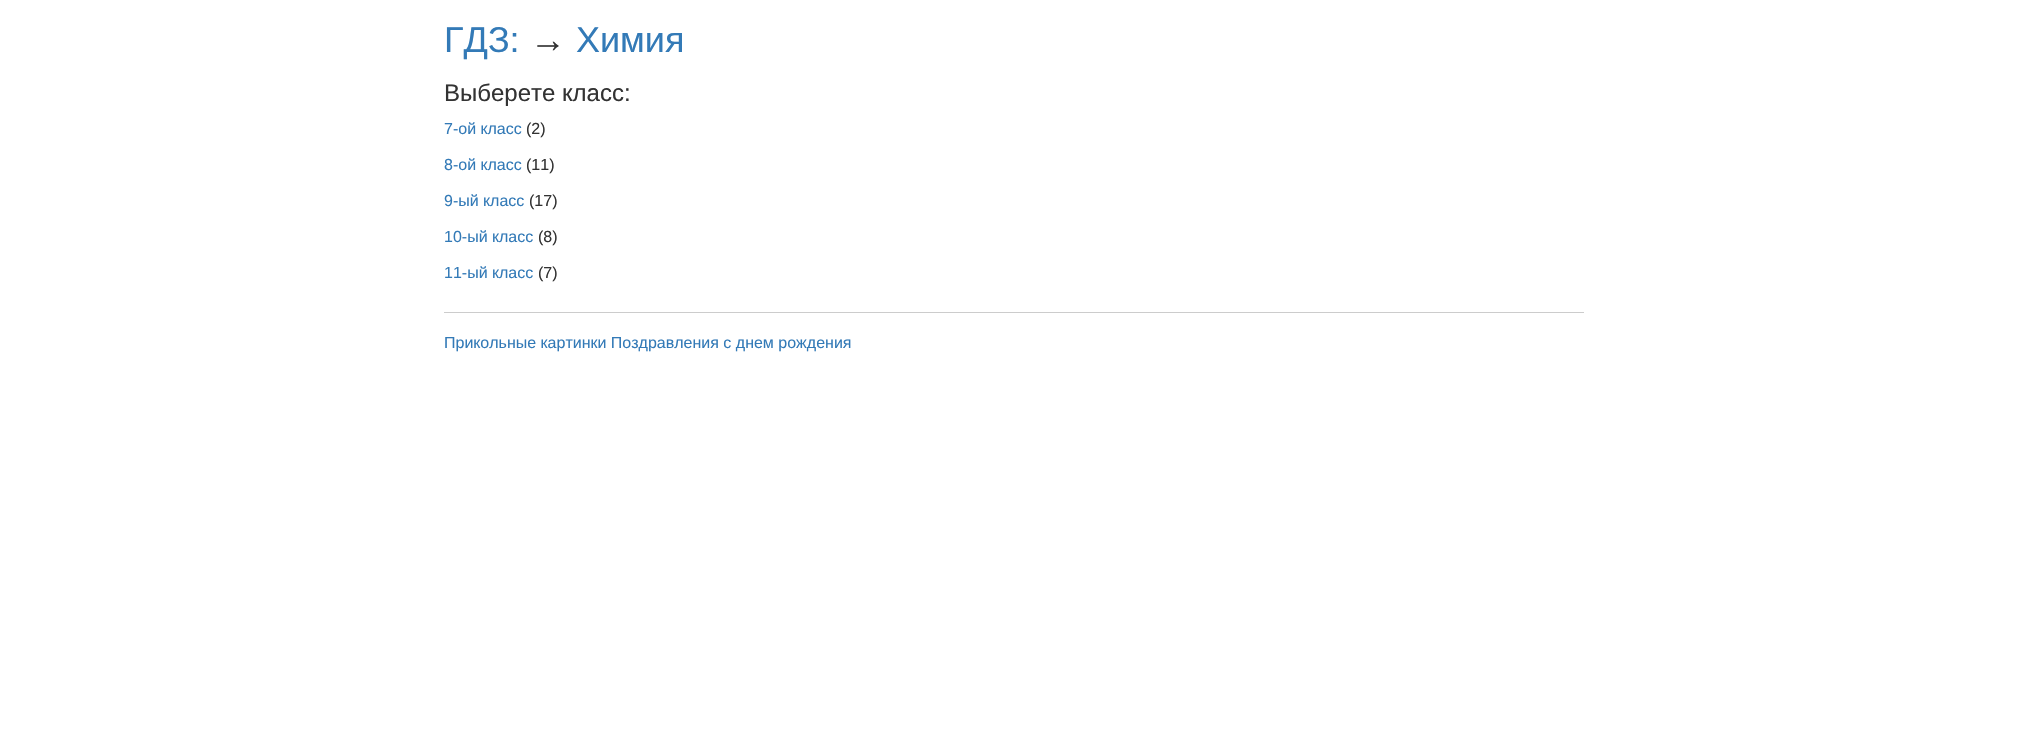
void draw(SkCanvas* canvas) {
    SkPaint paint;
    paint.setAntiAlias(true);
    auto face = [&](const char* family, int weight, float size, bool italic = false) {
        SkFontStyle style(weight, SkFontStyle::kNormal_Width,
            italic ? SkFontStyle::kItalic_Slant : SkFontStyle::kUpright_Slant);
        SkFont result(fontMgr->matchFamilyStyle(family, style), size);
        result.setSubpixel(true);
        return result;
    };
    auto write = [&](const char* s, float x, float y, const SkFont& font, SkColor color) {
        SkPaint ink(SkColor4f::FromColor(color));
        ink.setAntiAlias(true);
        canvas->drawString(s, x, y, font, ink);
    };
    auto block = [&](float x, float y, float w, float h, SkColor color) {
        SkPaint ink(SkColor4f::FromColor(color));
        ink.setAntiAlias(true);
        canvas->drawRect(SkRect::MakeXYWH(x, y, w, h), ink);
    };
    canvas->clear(SK_ColorWHITE);
    auto kFont1 = face("Liberation Sans", 400, 36);
    write("ГДЗ:", 444, 52, kFont1, SkColorSetRGB(51, 122, 183));
    write("→", 530, 52, kFont1, SkColorSetRGB(51, 51, 51));
    write("Химия", 576, 52, kFont1, SkColorSetRGB(51, 122, 183));
    auto kFont2 = face("Liberation Sans", 400, 24);
    write("Выберете класс:", 444, 101, kFont2, SkColorSetRGB(51, 51, 51));
    auto kFont3 = face("Liberation Sans", 400, 16);
    write("7-ой класс", 444, 134, kFont3, SkColorSetRGB(51, 122, 183));
    write("(2)", 526, 134, kFont3, SkColorSetRGB(51, 51, 51));
    write("8-ой класс", 444, 170, kFont3, SkColorSetRGB(51, 122, 183));
    write("(11)", 526, 170, kFont3, SkColorSetRGB(51, 51, 51));
    write("9-ый класс", 444, 206, kFont3, SkColorSetRGB(51, 122, 183));
    write("(17)", 529, 206, kFont3, SkColorSetRGB(51, 51, 51));
    write("10-ый класс", 444, 242, kFont3, SkColorSetRGB(51, 122, 183));
    write("(8)", 538, 242, kFont3, SkColorSetRGB(51, 51, 51));
    write("11-ый класс", 444, 278, kFont3, SkColorSetRGB(51, 122, 183));
    write("(7)", 538, 278, kFont3, SkColorSetRGB(51, 51, 51));
    block(444, 312, 1140, 1, SkColorSetRGB(204, 204, 204));
    write("Прикольные картинки Поздравления с днем рождения", 444, 348, kFont3, SkColorSetRGB(51, 122, 183));
}
